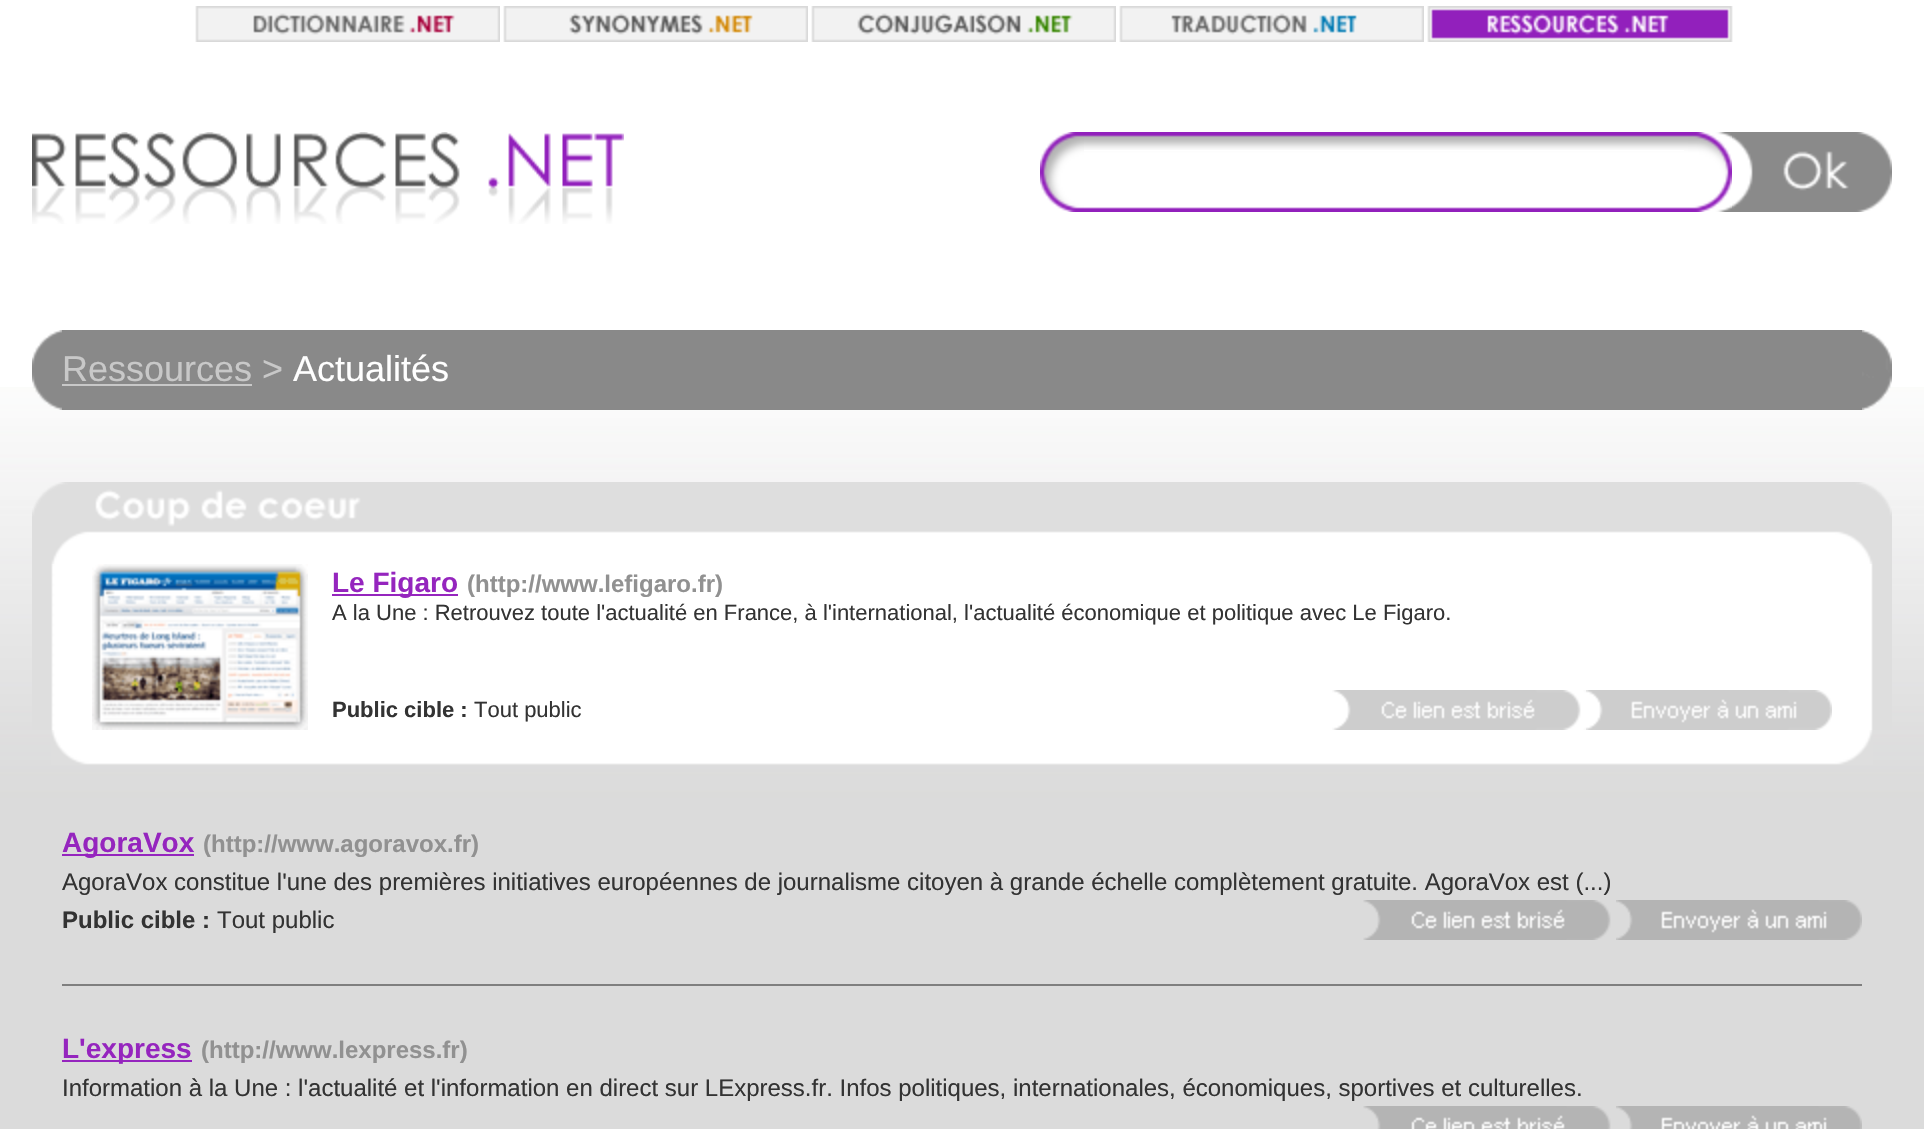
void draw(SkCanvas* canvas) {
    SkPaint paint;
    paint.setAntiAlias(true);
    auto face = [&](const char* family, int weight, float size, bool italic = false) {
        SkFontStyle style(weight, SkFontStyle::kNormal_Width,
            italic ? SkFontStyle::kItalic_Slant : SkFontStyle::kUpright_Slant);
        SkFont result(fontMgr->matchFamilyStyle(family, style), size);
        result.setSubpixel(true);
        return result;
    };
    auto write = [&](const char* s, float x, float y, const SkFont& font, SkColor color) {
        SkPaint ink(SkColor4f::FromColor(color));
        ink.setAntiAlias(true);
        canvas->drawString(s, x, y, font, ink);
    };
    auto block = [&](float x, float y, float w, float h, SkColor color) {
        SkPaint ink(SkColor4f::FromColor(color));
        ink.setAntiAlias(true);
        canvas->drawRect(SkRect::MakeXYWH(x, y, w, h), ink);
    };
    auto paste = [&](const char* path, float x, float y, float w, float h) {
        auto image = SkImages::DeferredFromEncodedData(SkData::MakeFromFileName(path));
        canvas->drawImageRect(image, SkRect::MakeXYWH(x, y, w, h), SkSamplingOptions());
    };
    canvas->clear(SK_ColorWHITE);
    paste("pic1.png", 0, 387, 1924, 742);
    paste("pic2.png", 195, 6, 305, 36);
    paste("pic3.png", 503, 6, 305, 36);
    paste("pic4.png", 811, 6, 305, 36);
    paste("pic5.png", 1119, 6, 305, 36);
    paste("pic6.png", 1427, 6, 306, 36);
    paste("pic7.png", 32, 132, 592, 92);
    paste("pic8.png", 1040, 132, 44, 80);
    paste("pic9.png", 1084, 132, 604, 80);
    block(1084, 150, 600, 1, SK_ColorWHITE);
    paste("pic10.png", 1688, 132, 44, 80);
    paste("pic11.png", 1732, 132, 160, 80);
    paste("pic12.png", 32, 330, 30, 80);
    block(62, 330, 1800, 80, SkColorSetRGB(137, 137, 137));
    auto kFont1 = face("Liberation Sans", 400, 36);
    write("Ressources >", 62, 381, kFont1, SkColorSetRGB(200, 200, 200));
    block(62, 384, 190, 2, SkColorSetRGB(200, 200, 200));
    write("Actualités", 293, 381, kFont1, SK_ColorWHITE);
    paste("pic13.png", 1862, 330, 30, 80);
    paste("pic14.png", 32, 482, 1860, 82);
    paste("pic15.png", 32, 564, 1860, 166);
    paste("pic16.png", 92, 564, 216, 166);
    block(332, 594, 126, 2, SkColorSetRGB(149, 37, 190));
    auto kFont2 = face("Liberation Sans", 700, 28);
    write("Le Figaro", 332, 592, kFont2, SkColorSetRGB(149, 37, 190));
    auto kFont3 = face("Liberation Sans", 700, 24);
    write("(http://www.lefigaro.fr)", 467, 592, kFont3, SkColorSetRGB(145, 145, 145));
    auto kFont4 = face("Liberation Sans", 400, 22);
    write("A la Une : Retrouvez toute l'actualité en France, à l'international, l'actualité économique et politique avec Le Figaro.", 332, 620, kFont4, SkColorSetRGB(51, 51, 51));
    auto kFont5 = face("Liberation Sans", 700, 22);
    write("Public cible :", 332, 717, kFont5, SkColorSetRGB(51, 51, 51));
    write("Tout public", 474, 717, kFont4, SkColorSetRGB(51, 51, 51));
    paste("pic17.png", 1332, 690, 254, 40);
    paste("pic18.png", 1586, 690, 246, 40);
    paste("pic19.png", 51, 730, 1822, 35);
    block(62, 854, 132, 2, SkColorSetRGB(149, 37, 190));
    write("AgoraVox", 62, 852, kFont2, SkColorSetRGB(149, 37, 190));
    write("(http://www.agoravox.fr)", 203, 852, kFont3, SkColorSetRGB(145, 145, 145));
    auto kFont6 = face("Liberation Sans", 400, 24);
    write("AgoraVox constitue l'une des premières initiatives européennes de journalisme citoyen à grande échelle complètement gratuite. AgoraVox est (...)", 62, 890, kFont6, SkColorSetRGB(51, 51, 51));
    write("Public cible :", 62, 928, kFont3, SkColorSetRGB(51, 51, 51));
    write("Tout public", 217, 928, kFont6, SkColorSetRGB(51, 51, 51));
    paste("pic20.png", 1363, 900, 248, 40);
    paste("pic21.png", 1616, 900, 246, 40);
    block(62, 984, 1800, 2, SkColorSetRGB(127, 127, 127));
    block(62, 1060, 130, 2, SkColorSetRGB(149, 37, 190));
    write("L'express", 62, 1058, kFont2, SkColorSetRGB(149, 37, 190));
    write("(http://www.lexpress.fr)", 201, 1058, kFont3, SkColorSetRGB(145, 145, 145));
    write("Information à la Une : l'actualité et l'information en direct sur LExpress.fr. Infos politiques, internationales, économiques, sportives et culturelles.", 62, 1096, kFont6, SkColorSetRGB(51, 51, 51));
    paste("pic22.png", 1363, 1106, 248, 23);
    paste("pic23.png", 1616, 1106, 246, 23);
}
